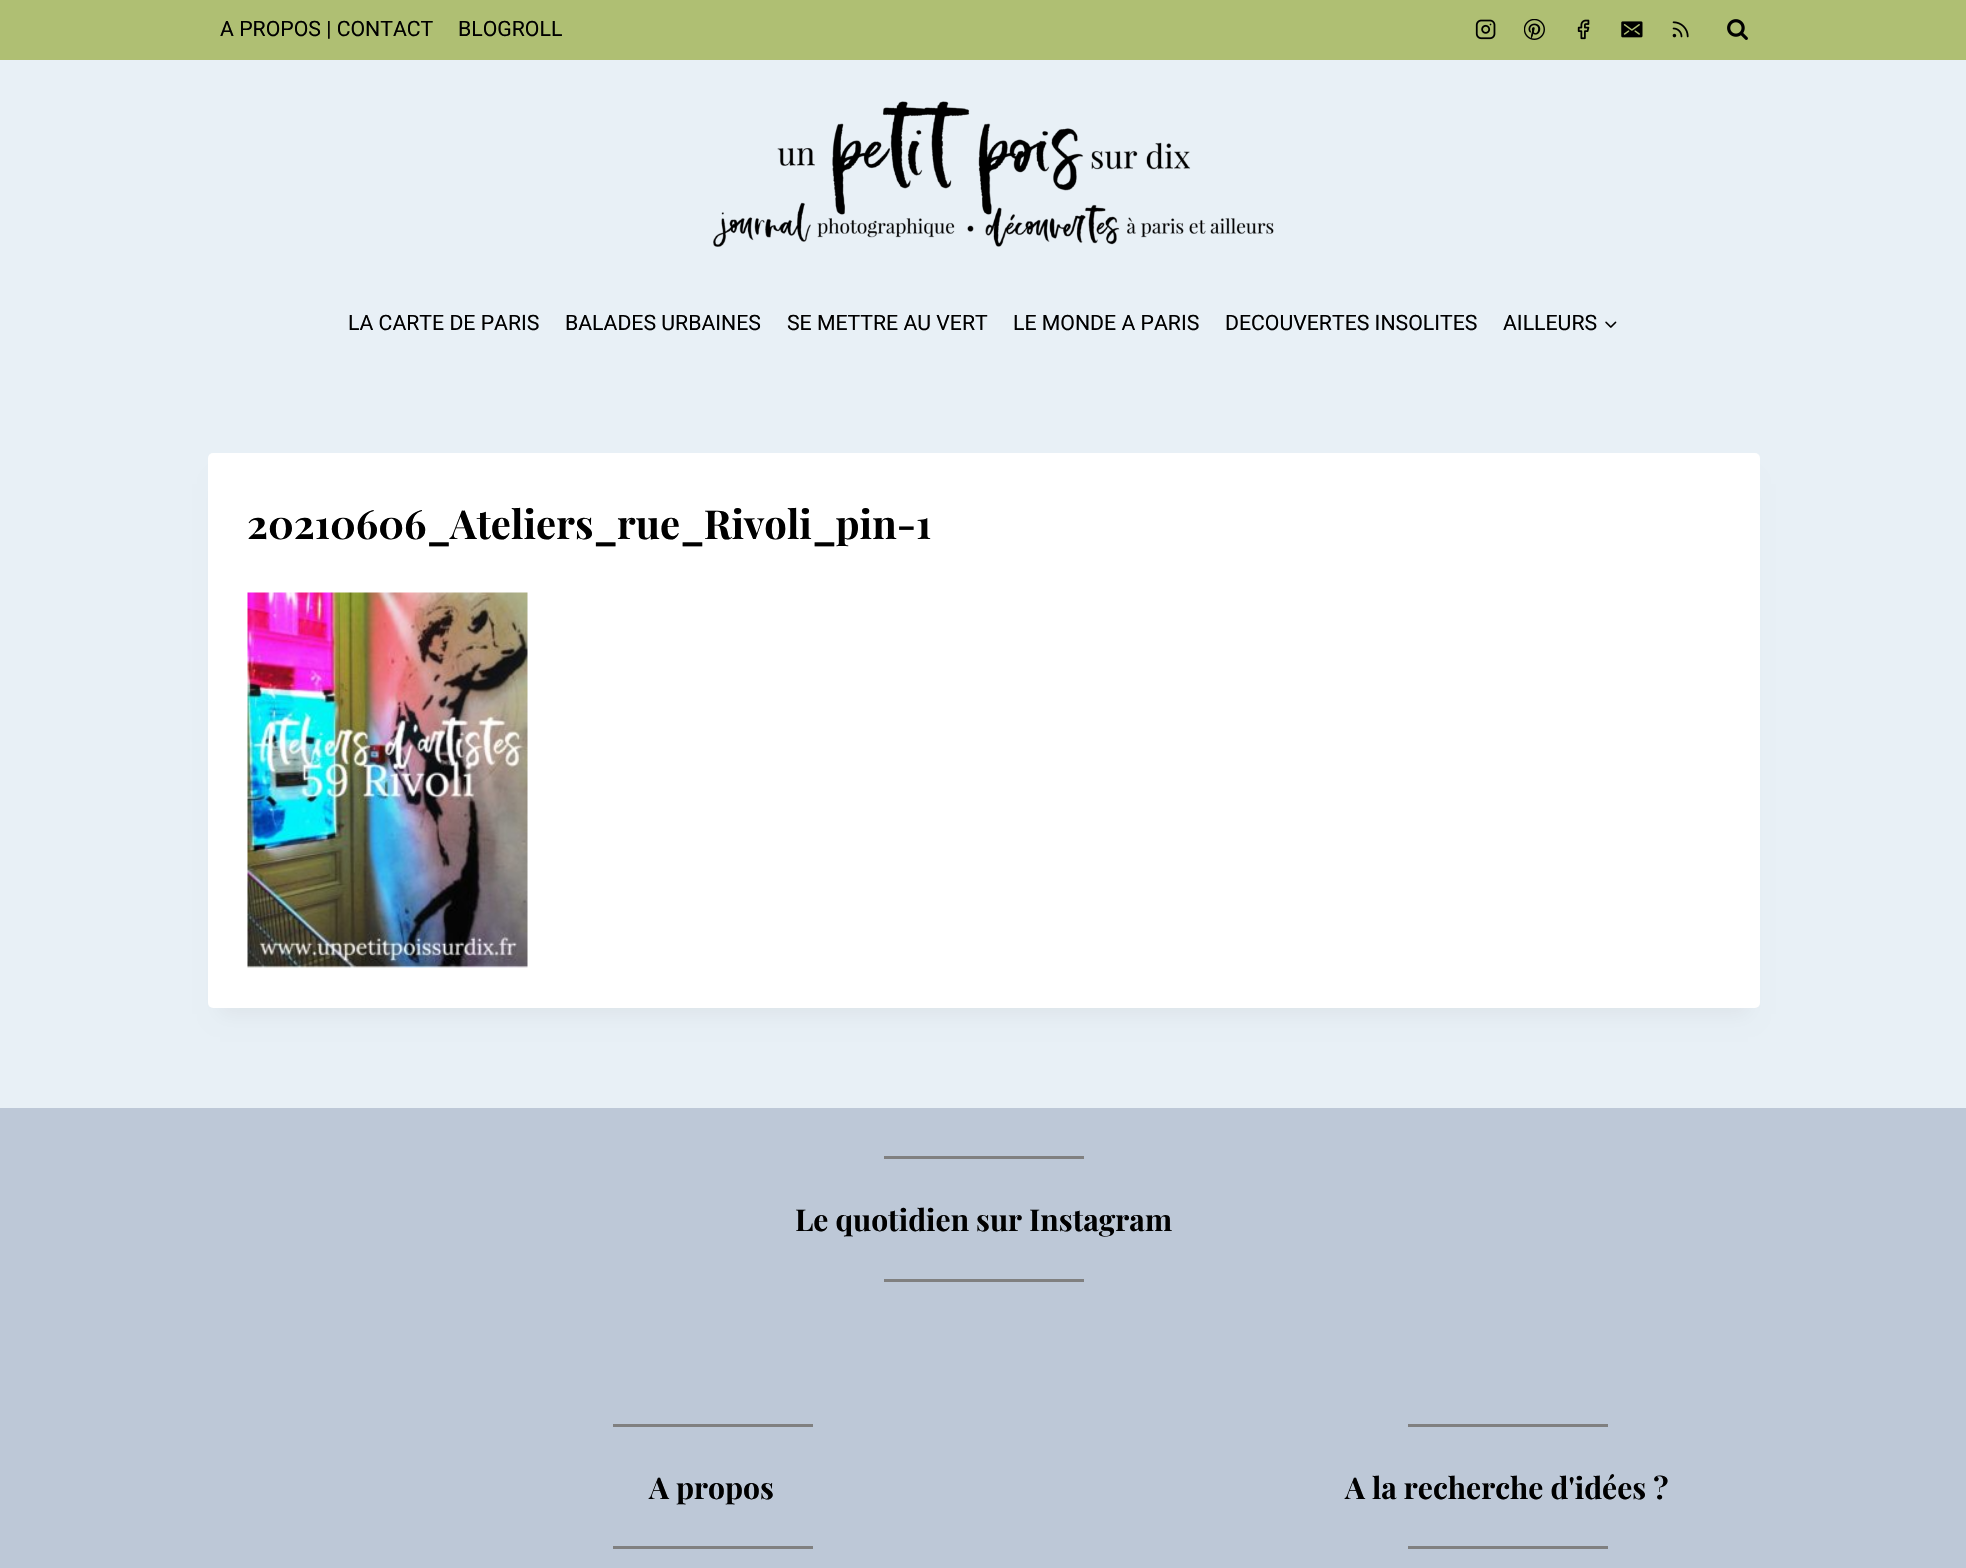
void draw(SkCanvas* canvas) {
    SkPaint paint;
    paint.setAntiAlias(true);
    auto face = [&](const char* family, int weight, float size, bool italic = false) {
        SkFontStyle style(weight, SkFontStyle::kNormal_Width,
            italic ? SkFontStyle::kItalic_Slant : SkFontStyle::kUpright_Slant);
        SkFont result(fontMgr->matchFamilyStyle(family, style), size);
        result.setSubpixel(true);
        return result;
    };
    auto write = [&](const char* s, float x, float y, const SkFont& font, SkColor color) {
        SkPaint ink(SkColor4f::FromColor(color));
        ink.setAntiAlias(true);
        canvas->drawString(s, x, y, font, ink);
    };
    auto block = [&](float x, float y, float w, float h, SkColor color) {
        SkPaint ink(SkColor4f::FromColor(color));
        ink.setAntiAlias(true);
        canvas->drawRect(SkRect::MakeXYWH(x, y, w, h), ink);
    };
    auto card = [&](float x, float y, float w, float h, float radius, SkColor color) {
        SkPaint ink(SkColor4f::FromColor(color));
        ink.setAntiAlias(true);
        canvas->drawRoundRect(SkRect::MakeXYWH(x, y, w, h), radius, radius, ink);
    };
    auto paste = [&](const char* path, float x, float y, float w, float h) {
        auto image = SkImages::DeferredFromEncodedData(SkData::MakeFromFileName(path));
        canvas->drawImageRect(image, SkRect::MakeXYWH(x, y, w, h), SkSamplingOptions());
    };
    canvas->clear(SkColorSetRGB(232, 240, 246));
    block(0, 0, 1966, 60, SkColorSetRGB(175, 191, 115));
    auto kFont1 = face("Roboto", 400, 21.25f);
    write("A PROPOS | CONTACT", 220, 36, kFont1, SK_ColorBLACK);
    write("BLOGROLL", 458, 36, kFont1, SK_ColorBLACK);
    paste("pic1.png", 1475, 19, 21, 21);
    paste("pic2.png", 1524, 19, 21, 21);
    paste("pic3.png", 1577, 19, 13, 21);
    paste("pic4.png", 1621, 21, 22, 17);
    paste("pic5.png", 1672, 21, 17, 17);
    paste("pic6.png", 1727, 19, 21, 21);
    paste("pic7.png", 713, 101, 561, 146);
    write("LA CARTE DE PARIS", 348, 330, kFont1, SK_ColorBLACK);
    write("BALADES URBAINES", 565, 330, kFont1, SK_ColorBLACK);
    write("SE METTRE AU VERT", 787, 330, kFont1, SK_ColorBLACK);
    write("LE MONDE A PARIS", 1013, 330, kFont1, SK_ColorBLACK);
    write("DECOUVERTES INSOLITES", 1225, 330, kFont1, SK_ColorBLACK);
    write("AILLEURS", 1503, 330, kFont1, SK_ColorBLACK);
    paste("pic8.png", 1605, 321, 12, 7);
    paint.setColor(SkColorSetARGB(13, 0, 0, 0));
    paint.setMaskFilter(SkMaskFilter::MakeBlur(kNormal_SkBlurStyle, 9.5f));
    canvas->drawRect(SkRect::MakeXYWH(220, 484, 1528, 530), paint);
    paint.setMaskFilter(nullptr);
    card(208, 453, 1552, 555, 5, SK_ColorWHITE);
    auto kFont2 = face("Playfair Display", 700, 40);
    write("20210606_Ateliers_rue_Rivoli_pin-1", 247, 539, kFont2, SK_ColorBLACK);
    paste("pic9.png", 247, 592, 281, 376);
    block(0, 1108, 1966, 460, SkColorSetRGB(189, 200, 215));
    block(884, 1156, 200, 3, SkColorSetRGB(128, 128, 128));
    auto kFont3 = face("Playfair Display", 700, 30);
    write("Le quotidien sur Instagram", 795, 1231, kFont3, SK_ColorBLACK);
    block(884, 1279, 200, 3, SkColorSetRGB(128, 128, 128));
    block(613, 1424, 200, 3, SkColorSetRGB(128, 128, 128));
    write("A propos", 649, 1499, kFont3, SK_ColorBLACK);
    block(613, 1546, 200, 3, SkColorSetRGB(128, 128, 128));
    block(1408, 1424, 200, 3, SkColorSetRGB(128, 128, 128));
    write("A la recherche d'idées ?", 1345, 1499, kFont3, SK_ColorBLACK);
    block(1408, 1546, 200, 3, SkColorSetRGB(128, 128, 128));
}
